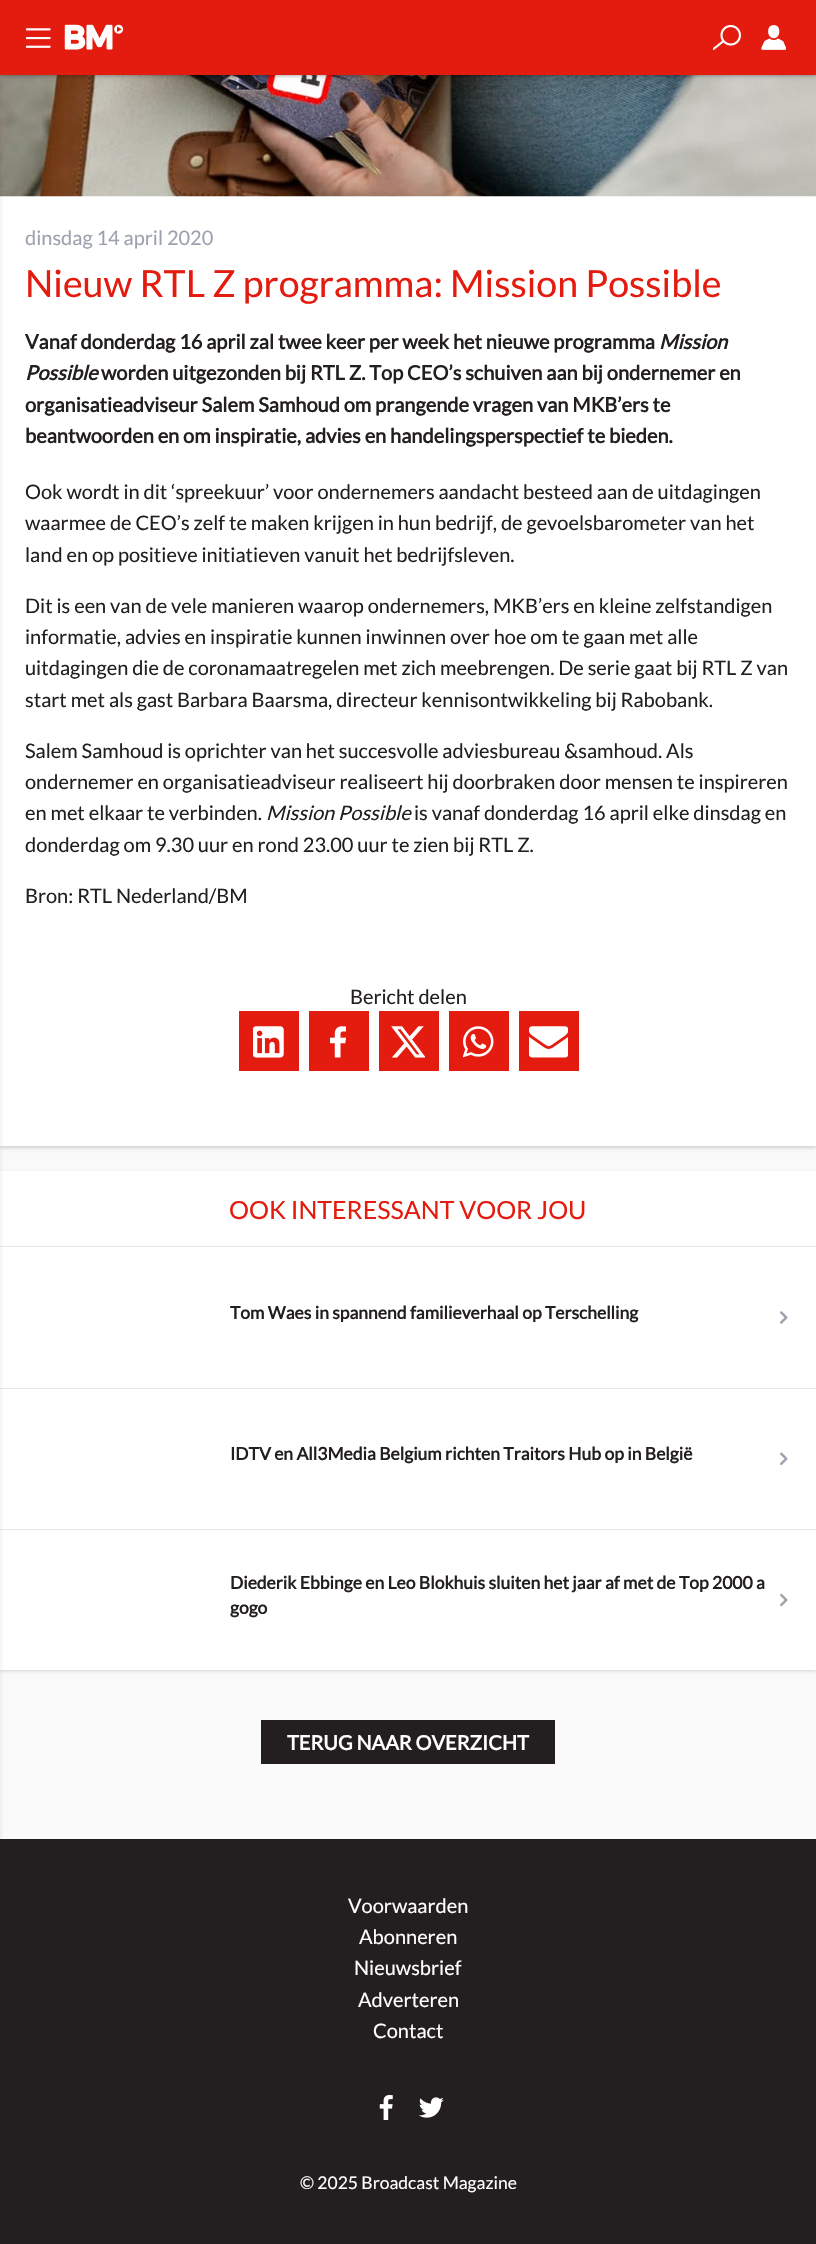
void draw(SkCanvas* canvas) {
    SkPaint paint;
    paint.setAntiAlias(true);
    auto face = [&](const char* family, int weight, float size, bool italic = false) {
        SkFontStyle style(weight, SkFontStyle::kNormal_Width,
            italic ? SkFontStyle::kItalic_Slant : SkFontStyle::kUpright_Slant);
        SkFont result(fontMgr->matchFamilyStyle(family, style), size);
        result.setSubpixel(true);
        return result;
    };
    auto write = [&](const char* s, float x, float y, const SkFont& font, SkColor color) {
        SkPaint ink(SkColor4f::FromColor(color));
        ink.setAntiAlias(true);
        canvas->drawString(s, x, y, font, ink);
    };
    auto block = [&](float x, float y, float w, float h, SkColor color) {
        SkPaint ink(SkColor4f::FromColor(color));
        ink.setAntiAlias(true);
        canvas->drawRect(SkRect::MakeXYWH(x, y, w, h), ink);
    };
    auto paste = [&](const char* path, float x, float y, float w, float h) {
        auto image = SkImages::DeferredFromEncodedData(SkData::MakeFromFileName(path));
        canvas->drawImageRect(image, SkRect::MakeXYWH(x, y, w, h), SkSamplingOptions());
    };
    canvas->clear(SkColorSetRGB(250, 250, 250));
    paint.setColor(SkColorSetARGB(15, 0, 0, 0));
    paint.setMaskFilter(SkMaskFilter::MakeBlur(kNormal_SkBlurStyle, 1));
    canvas->drawRect(SkRect::MakeXYWH(0, -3, 816, 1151), paint);
    paint.setMaskFilter(nullptr);
    paint.setColor(SkColorSetARGB(26, 0, 0, 0));
    paint.setMaskFilter(SkMaskFilter::MakeBlur(kNormal_SkBlurStyle, 2));
    canvas->drawRect(SkRect::MakeXYWH(0, -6, 816, 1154), paint);
    paint.setMaskFilter(nullptr);
    block(0, 196, 816, 950, SK_ColorWHITE);
    paste("pic5.png", 0, 75, 816, 122);
    paint.setColor(SkColorSetARGB(15, 0, 0, 0));
    paint.setMaskFilter(SkMaskFilter::MakeBlur(kNormal_SkBlurStyle, 1));
    canvas->drawRect(SkRect::MakeXYWH(0, 1173, 816, 498), paint);
    paint.setMaskFilter(nullptr);
    paint.setColor(SkColorSetARGB(26, 0, 0, 0));
    paint.setMaskFilter(SkMaskFilter::MakeBlur(kNormal_SkBlurStyle, 2));
    canvas->drawRect(SkRect::MakeXYWH(0, 1173, 816, 498), paint);
    paint.setMaskFilter(nullptr);
    block(0, 1171, 816, 499, SK_ColorWHITE);
    block(0, 1246, 816, 1, SkColorSetRGB(229, 231, 235));
    block(0, 1388, 816, 1, SkColorSetRGB(229, 231, 235));
    block(0, 1529, 816, 1, SkColorSetRGB(229, 231, 235));
    block(0, 1839, 816, 405, SkColorSetRGB(35, 31, 32));
    paint.setMaskFilter(SkMaskFilter::MakeBlur(kNormal_SkBlurStyle, 2));
    canvas->drawRect(SkRect::MakeXYWH(-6, 1, 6, 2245), paint);
    paint.setMaskFilter(nullptr);
    paint.setColor(SkColorSetARGB(15, 0, 0, 0));
    paint.setMaskFilter(SkMaskFilter::MakeBlur(kNormal_SkBlurStyle, 1));
    canvas->drawRect(SkRect::MakeXYWH(0, 1, 816, 75), paint);
    paint.setMaskFilter(nullptr);
    paint.setColor(SkColorSetARGB(26, 0, 0, 0));
    paint.setMaskFilter(SkMaskFilter::MakeBlur(kNormal_SkBlurStyle, 2));
    canvas->drawRect(SkRect::MakeXYWH(0, 1, 816, 75), paint);
    paint.setMaskFilter(nullptr);
    paint.setColor(SkColorSetARGB(15, 0, 0, 0));
    paint.setMaskFilter(SkMaskFilter::MakeBlur(kNormal_SkBlurStyle, 1));
    canvas->drawRect(SkRect::MakeXYWH(0, 1, 816, 75), paint);
    paint.setMaskFilter(nullptr);
    paint.setColor(SkColorSetARGB(26, 0, 0, 0));
    paint.setMaskFilter(SkMaskFilter::MakeBlur(kNormal_SkBlurStyle, 2));
    canvas->drawRect(SkRect::MakeXYWH(0, 1, 816, 75), paint);
    paint.setMaskFilter(nullptr);
    block(0, 0, 816, 75, SkColorSetRGB(227, 28, 15));
    paste("pic1.png", 26, 28, 25, 20);
    paste("pic2.png", 64, 24, 60, 26);
    paste("pic3.png", 713, 25, 28, 25);
    paste("pic4.png", 761, 25, 25, 25);
    auto kFont1 = face("Lato", 400, 20);
    write("dinsdag 14 april 2020", 25, 245, kFont1, SkColorSetRGB(156, 163, 175));
    auto kFont2 = face("Lato", 400, 37.5f);
    write("Nieuw RTL Z programma: Mission Possible", 25, 297, kFont2, SkColorSetRGB(227, 28, 15));
    auto kFont3 = face("Lato", 700, 20);
    write("Vanaf donderdag 16 april zal twee keer per week het nieuwe programma", 25, 349, kFont3, SkColorSetRGB(35, 31, 32));
    auto kFont4 = face("Lato", 700, 20, true);
    write("Mission", 659, 349, kFont4, SkColorSetRGB(35, 31, 32));
    write("Possible", 25, 380, kFont4, SkColorSetRGB(35, 31, 32));
    write("worden uitgezonden bij RTL Z. Top CEO’s schuiven aan bij ondernemer en", 101, 380, kFont3, SkColorSetRGB(35, 31, 32));
    write("organisatieadviseur Salem Samhoud om prangende vragen van MKB’ers te", 25, 412, kFont3, SkColorSetRGB(35, 31, 32));
    write("beantwoorden en om inspiratie, advies en handelingsperspectief te bieden.", 25, 443, kFont3, SkColorSetRGB(35, 31, 32));
    write("Ook wordt in dit ‘spreekuur’ voor ondernemers aandacht besteed aan de uitdagingen", 25, 499, kFont1, SkColorSetRGB(35, 31, 32));
    write("waarmee de CEO’s zelf te maken krijgen in hun bedrijf, de gevoelsbarometer van het", 25, 530, kFont1, SkColorSetRGB(35, 31, 32));
    write("land en op positieve initiatieven vanuit het bedrijfsleven.", 25, 562, kFont1, SkColorSetRGB(35, 31, 32));
    write("Dit is een van de vele manieren waarop ondernemers, MKB’ers en kleine zelfstandigen", 25, 613, kFont1, SkColorSetRGB(35, 31, 32));
    write("informatie, advies en inspiratie kunnen inwinnen over hoe om te gaan met alle", 25, 644, kFont1, SkColorSetRGB(35, 31, 32));
    write("uitdagingen die de coronamaatregelen met zich meebrengen. De serie gaat bij RTL Z van", 25, 675, kFont1, SkColorSetRGB(35, 31, 32));
    write("start met als gast Barbara Baarsma, directeur kennisontwikkeling bij Rabobank.", 25, 707, kFont1, SkColorSetRGB(35, 31, 32));
    write("Salem Samhoud is oprichter van het succesvolle adviesbureau &samhoud. Als", 25, 758, kFont1, SkColorSetRGB(35, 31, 32));
    write("ondernemer en organisatieadviseur realiseert hij doorbraken door mensen te inspireren", 25, 789, kFont1, SkColorSetRGB(35, 31, 32));
    write("en met elkaar te verbinden.", 25, 820, kFont1, SkColorSetRGB(35, 31, 32));
    auto kFont5 = face("Lato", 400, 20, true);
    write("Mission Possible", 266, 820, kFont5, SkColorSetRGB(35, 31, 32));
    write("is vanaf donderdag 16 april elke dinsdag en", 414, 820, kFont1, SkColorSetRGB(35, 31, 32));
    write("donderdag om 9.30 uur en rond 23.00 uur te zien bij RTL Z.", 25, 852, kFont1, SkColorSetRGB(35, 31, 32));
    write("Bron: RTL Nederland/BM", 25, 903, kFont1, SkColorSetRGB(35, 31, 32));
    write("Bericht delen", 350, 1004, kFont1, SkColorSetRGB(35, 31, 32));
    block(239, 1011, 60, 60, SkColorSetRGB(227, 28, 15));
    paste("pic6.png", 253, 1026, 31, 32);
    block(309, 1011, 60, 60, SkColorSetRGB(227, 28, 15));
    paste("pic7.png", 330, 1026, 16, 32);
    block(379, 1011, 60, 60, SkColorSetRGB(227, 28, 15));
    paste("pic8.png", 391, 1026, 34, 32);
    block(449, 1011, 60, 60, SkColorSetRGB(227, 28, 15));
    paste("pic9.png", 463, 1026, 31, 32);
    block(519, 1011, 60, 60, SkColorSetRGB(227, 28, 15));
    paste("pic10.png", 529, 1026, 39, 32);
    auto kFont6 = face("Lato", 400, 25);
    write("OOK INTERESSANT VOOR JOU", 229, 1219, kFont6, SkColorSetRGB(227, 28, 15));
    auto kFont7 = face("Lato", 700, 17.5f);
    write("Tom Waes in spannend familieverhaal op Terschelling", 230, 1319, kFont7, SkColorSetRGB(35, 31, 32));
    paste("pic11.png", 780, 1311, 8, 13);
    write("IDTV en All3Media Belgium richten Traitors Hub op in België", 230, 1460, kFont7, SkColorSetRGB(35, 31, 32));
    paste("pic12.png", 780, 1452, 8, 13);
    write("Diederik Ebbinge en Leo Blokhuis sluiten het jaar af met de Top 2000 a", 230, 1589, kFont7, SkColorSetRGB(35, 31, 32));
    write("gogo", 230, 1614, kFont7, SkColorSetRGB(35, 31, 32));
    paste("pic13.png", 780, 1593, 8, 14);
    block(261, 1720, 294, 44, SkColorSetRGB(35, 31, 32));
    write("TERUG NAAR OVERZICHT", 287, 1750, kFont3, SK_ColorWHITE);
    write("Voorwaarden", 348, 1913, kFont1, SK_ColorWHITE);
    write("Abonneren", 359, 1944, kFont1, SK_ColorWHITE);
    write("Nieuwsbrief", 354, 1975, kFont1, SK_ColorWHITE);
    write("Adverteren", 358, 2007, kFont1, SK_ColorWHITE);
    write("Contact", 373, 2038, kFont1, SK_ColorWHITE);
    paste("pic14.png", 379, 2095, 14, 25);
    paste("pic15.png", 419, 2097, 25, 21);
    auto kFont8 = face("Lato", 400, 17.5f);
    write("© 2025 Broadcast Magazine", 300, 2189, kFont8, SK_ColorWHITE);
}
